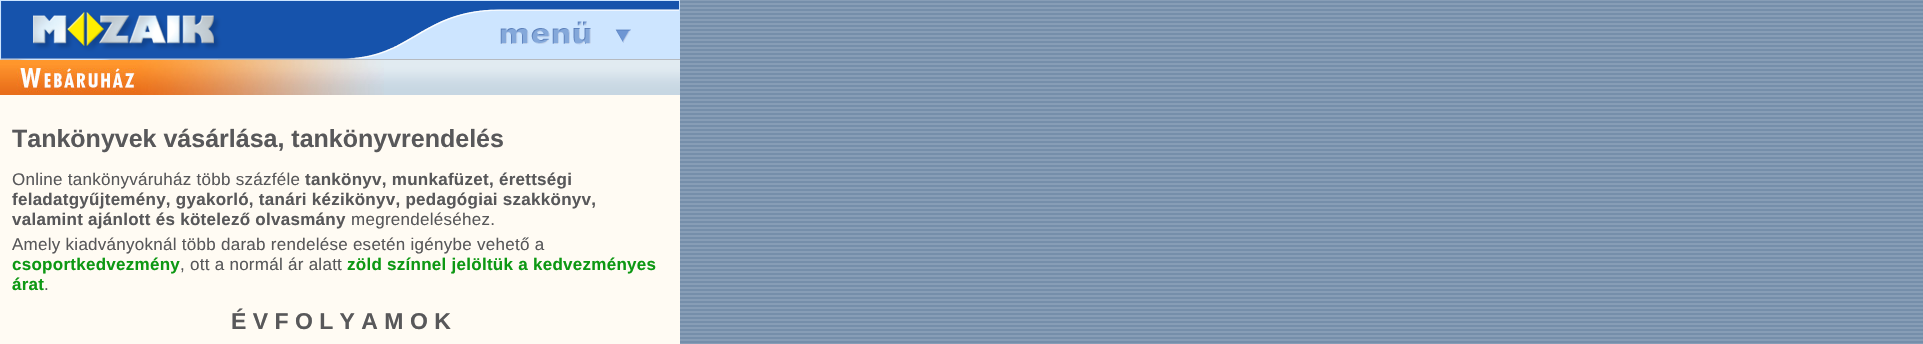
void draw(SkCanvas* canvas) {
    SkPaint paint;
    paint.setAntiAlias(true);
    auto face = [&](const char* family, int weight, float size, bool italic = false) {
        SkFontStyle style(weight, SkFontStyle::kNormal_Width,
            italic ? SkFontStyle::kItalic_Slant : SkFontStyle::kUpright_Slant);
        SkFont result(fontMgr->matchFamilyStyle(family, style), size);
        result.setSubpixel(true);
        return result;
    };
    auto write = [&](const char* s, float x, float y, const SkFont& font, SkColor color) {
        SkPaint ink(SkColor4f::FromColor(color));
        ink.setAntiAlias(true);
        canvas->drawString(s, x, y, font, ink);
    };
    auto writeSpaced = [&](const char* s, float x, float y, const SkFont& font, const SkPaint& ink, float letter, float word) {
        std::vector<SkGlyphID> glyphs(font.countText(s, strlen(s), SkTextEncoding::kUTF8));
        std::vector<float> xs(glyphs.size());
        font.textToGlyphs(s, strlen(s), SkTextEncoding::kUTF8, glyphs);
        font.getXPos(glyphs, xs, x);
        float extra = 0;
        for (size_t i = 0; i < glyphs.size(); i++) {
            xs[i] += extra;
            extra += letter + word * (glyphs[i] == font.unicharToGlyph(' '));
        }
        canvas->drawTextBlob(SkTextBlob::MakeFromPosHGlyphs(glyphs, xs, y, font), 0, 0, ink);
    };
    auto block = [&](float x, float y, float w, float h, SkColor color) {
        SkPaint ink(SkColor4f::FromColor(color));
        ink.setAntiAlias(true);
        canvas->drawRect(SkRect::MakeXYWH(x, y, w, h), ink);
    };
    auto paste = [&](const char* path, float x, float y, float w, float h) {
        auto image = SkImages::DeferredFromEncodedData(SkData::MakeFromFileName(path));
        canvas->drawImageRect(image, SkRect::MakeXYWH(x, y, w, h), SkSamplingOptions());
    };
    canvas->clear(SkColorSetRGB(135, 157, 182));
    paste("pic1.png", 680, 1, 1243, 342);
    paste("pic2.png", 0, 0, 680, 60);
    block(0, 95, 680, 249, SkColorSetRGB(255, 251, 243));
    paste("pic3.png", 384, 60, 296, 35);
    paste("pic4.png", 0, 60, 384, 35);
    auto kFont1 = face("Liberation Sans", 700, 25);
    write("Tankönyvek vásárlása, tankönyvrendelés", 12, 147, kFont1, SkColorSetRGB(88, 88, 90));
    auto kFont2 = face("Liberation Sans", 400, 17);
    paint.setColor(SkColorSetRGB(88, 88, 90));
    writeSpaced("Online tankönyváruház több százféle", 12, 185, kFont2, paint, 0.27f, 0);
    auto kFont3 = face("Liberation Sans", 700, 17);
    writeSpaced("tankönyv, munkafüzet, érettségi", 305, 185, kFont3, paint, 0.27f, 0);
    writeSpaced("feladatgyűjtemény, gyakorló, tanári kézikönyv, pedagógiai szakkönyv,", 12, 205, kFont3, paint, 0.27f, 0);
    writeSpaced("valamint ajánlott és kötelező olvasmány", 12, 225, kFont3, paint, 0.27f, 0);
    writeSpaced("megrendeléséhez.", 351, 225, kFont2, paint, 0.27f, 0);
    writeSpaced("Amely kiadványoknál több darab rendelése esetén igénybe vehető a", 12, 250, kFont2, paint, 0.27f, 0);
    paint.setColor(SkColorSetRGB(13, 152, 19));
    writeSpaced("csoportkedvezmény", 12, 270, kFont3, paint, 0.27f, 0);
    paint.setColor(SkColorSetRGB(88, 88, 90));
    writeSpaced(", ott a normál ár alatt", 180, 270, kFont2, paint, 0.27f, 0);
    paint.setColor(SkColorSetRGB(13, 152, 19));
    writeSpaced("zöld színnel jelöltük a kedvezményes", 347, 270, kFont3, paint, 0.27f, 0);
    writeSpaced("árat", 12, 290, kFont3, paint, 0.27f, 0);
    paint.setColor(SkColorSetRGB(88, 88, 90));
    writeSpaced(".", 44, 290, kFont2, paint, 0.27f, 0);
    auto kFont4 = face("Liberation Sans", 700, 23);
    write("É V F O L Y A M O K", 231, 329, kFont4, SkColorSetRGB(88, 88, 90));
}
